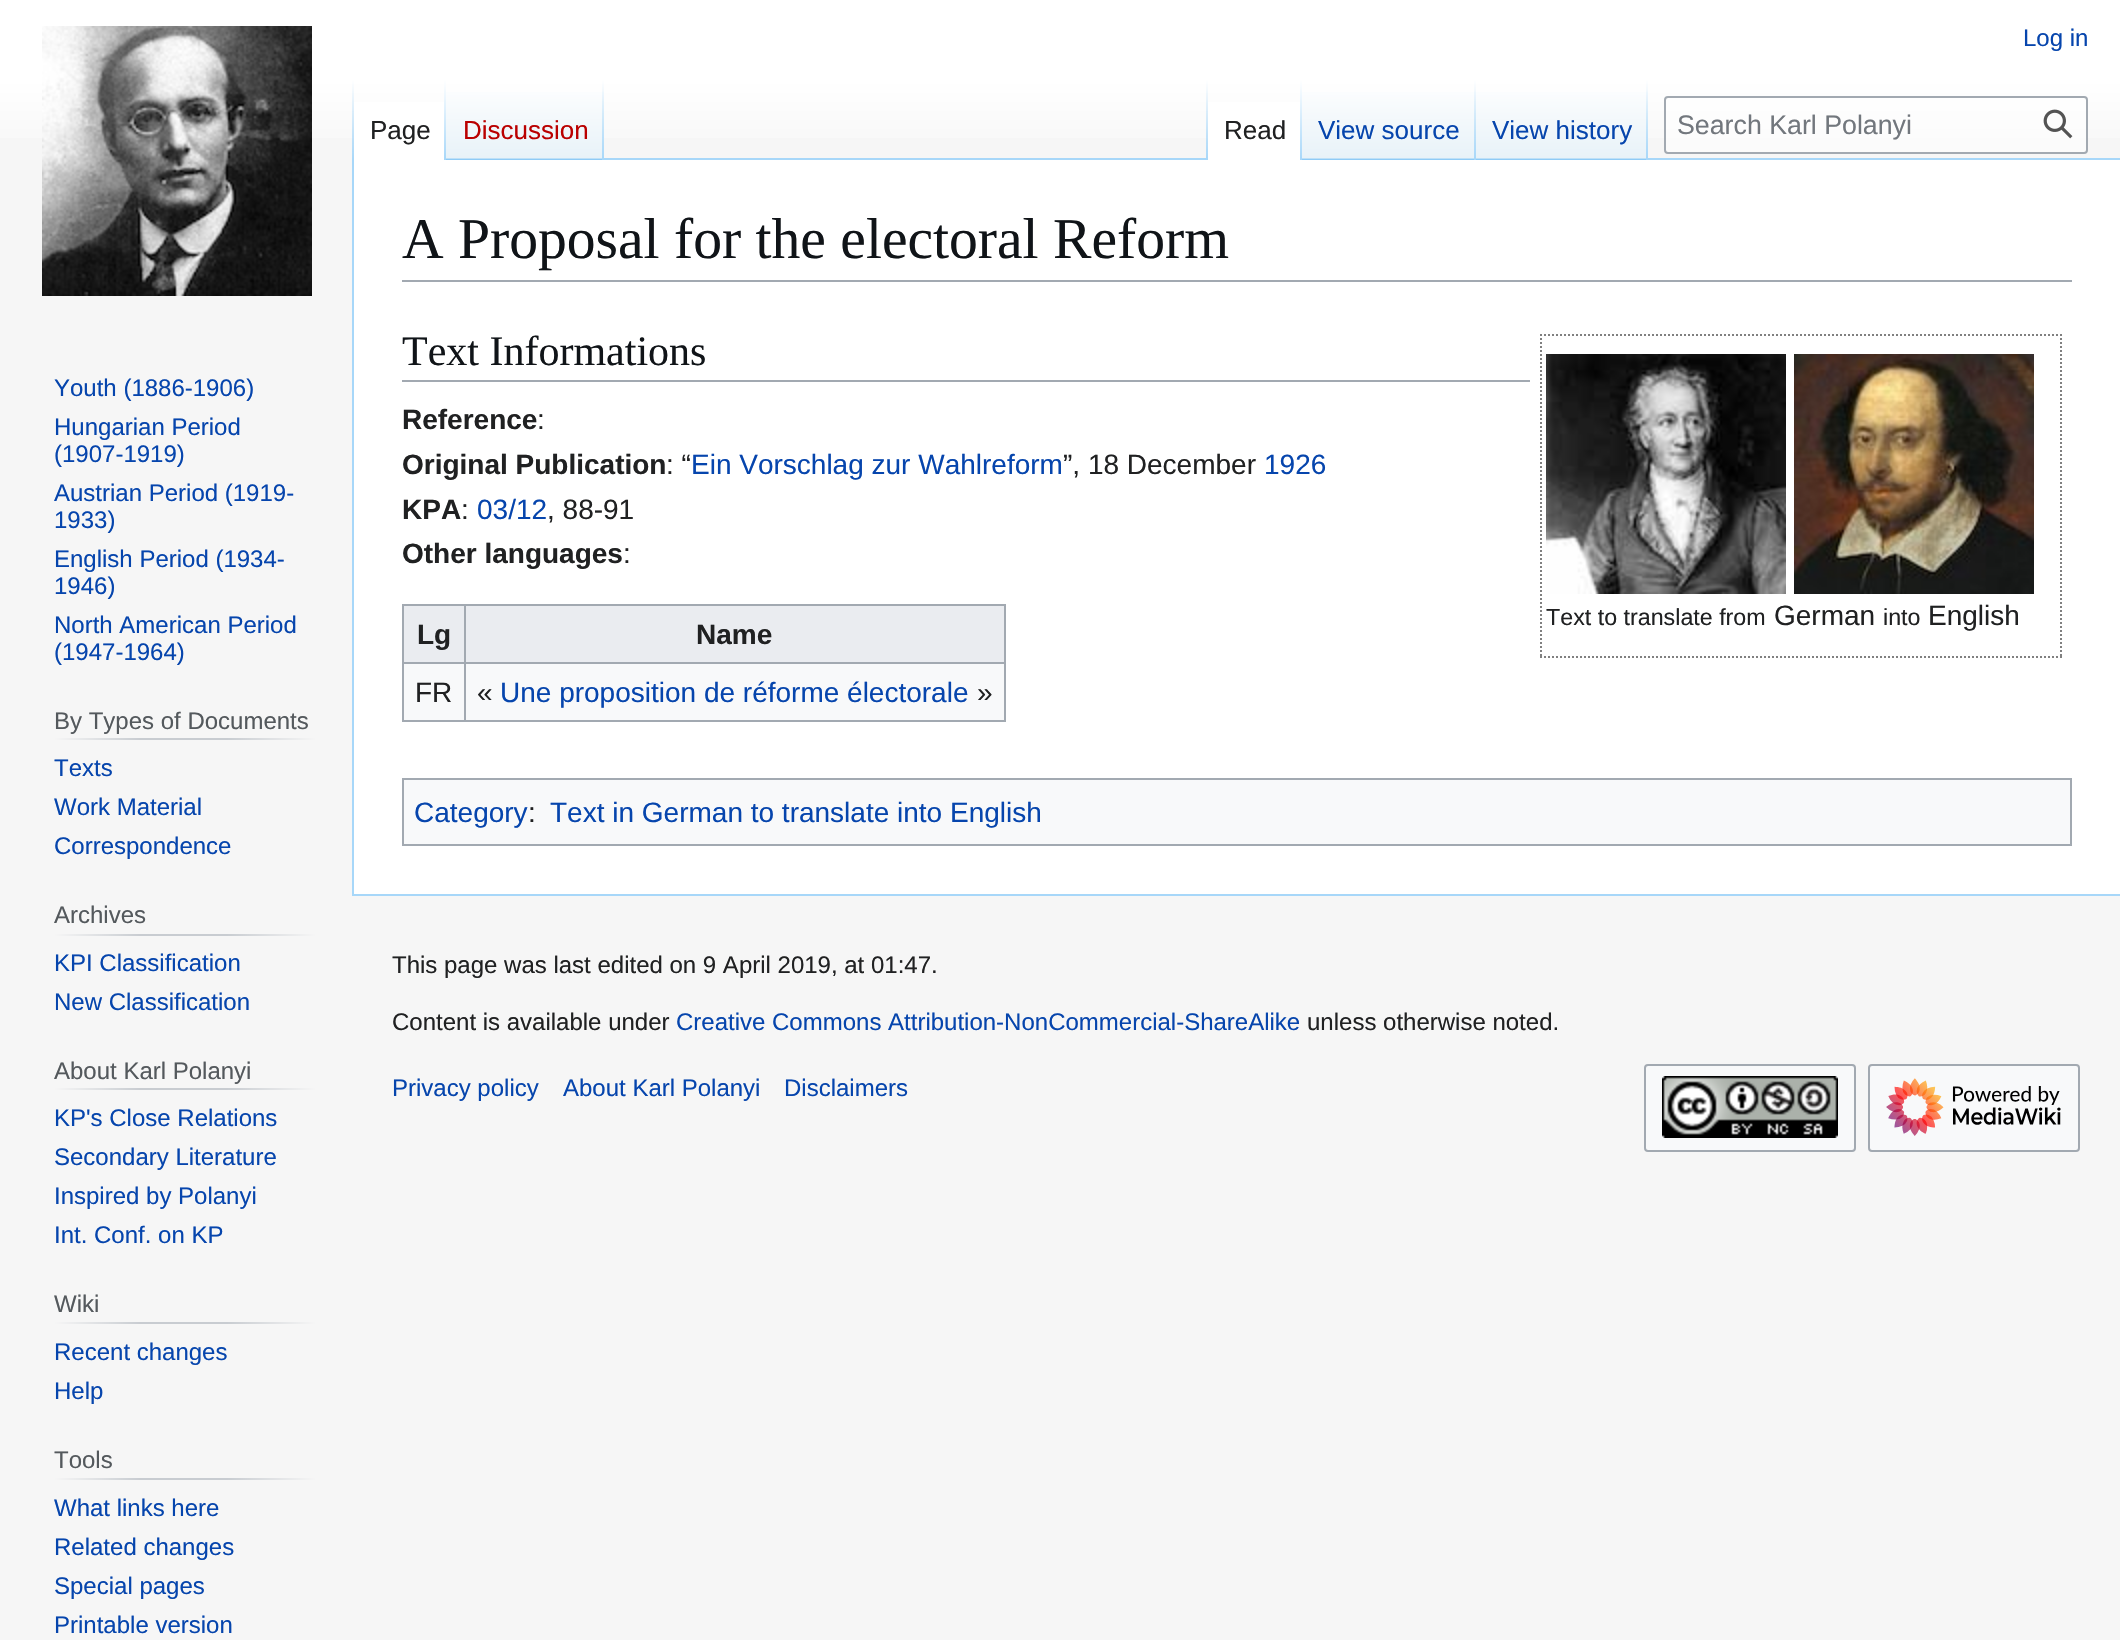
void draw(SkCanvas* canvas) {
    SkPaint paint;
    paint.setAntiAlias(true);
    auto face = [&](const char* family, int weight, float size, bool italic = false) {
        SkFontStyle style(weight, SkFontStyle::kNormal_Width,
            italic ? SkFontStyle::kItalic_Slant : SkFontStyle::kUpright_Slant);
        SkFont result(fontMgr->matchFamilyStyle(family, style), size);
        result.setSubpixel(true);
        return result;
    };
    auto write = [&](const char* s, float x, float y, const SkFont& font, SkColor color) {
        SkPaint ink(SkColor4f::FromColor(color));
        ink.setAntiAlias(true);
        canvas->drawString(s, x, y, font, ink);
    };
    auto block = [&](float x, float y, float w, float h, SkColor color) {
        SkPaint ink(SkColor4f::FromColor(color));
        ink.setAntiAlias(true);
        canvas->drawRect(SkRect::MakeXYWH(x, y, w, h), ink);
    };
    auto paste = [&](const char* path, float x, float y, float w, float h) {
        auto image = SkImages::DeferredFromEncodedData(SkData::MakeFromFileName(path));
        canvas->drawImageRect(image, SkRect::MakeXYWH(x, y, w, h), SkSamplingOptions());
    };
    canvas->clear(SkColorSetRGB(246, 246, 246));
    {
        const SkColor colors[] = {SK_ColorWHITE, SkColorSetRGB(246, 246, 246)};
        const float stops[] = {0.5f, 1};
        const SkPoint ends[] = {{1060, 0}, {1060, 160}};
        paint.setShader(SkGradientShader::MakeLinear(ends, colors, stops, 2, SkTileMode::kClamp));
        paint.setAlpha(255);
    }
    canvas->drawRect(SkRect::MakeXYWH(0, 0, 2120, 138), paint);
    auto kFont1 = face("Liberation Sans", 400, 24);
    write("Log in", 2023, 46, kFont1, SkColorSetRGB(6, 69, 173));
    block(352, 894, 1768, 2, SkColorSetRGB(167, 215, 249));
    block(352, 158, 2, 738, SkColorSetRGB(167, 215, 249));
    {
        const SkColor colors[] = {SkColorSetARGB(0, 167, 215, 249), SkColorSetRGB(167, 215, 249)};
        const float stops[] = {0, 1};
        const SkPoint ends[] = {{353, 80}, {353, 160}};
        paint.setShader(SkGradientShader::MakeLinear(ends, colors, stops, 2, SkTileMode::kClamp));
        paint.setAlpha(255);
    }
    canvas->drawRect(SkRect::MakeXYWH(352, 80, 2, 80), paint);
    block(354, 102, 90, 58, SK_ColorWHITE);
    {
        const SkColor colors[] = {SK_ColorWHITE, SkColorSetRGB(167, 215, 249)};
        const float stops[] = {0, 1};
        const SkPoint ends[] = {{445, 80}, {445, 160}};
        paint.setShader(SkGradientShader::MakeLinear(ends, colors, stops, 2, SkTileMode::kClamp));
        paint.setAlpha(255);
    }
    canvas->drawRect(SkRect::MakeXYWH(444, 80, 2, 80), paint);
    auto kFont2 = face("Liberation Sans", 400, 26);
    write("Page", 370, 139, kFont2, SkColorSetRGB(32, 33, 34));
    {
        const SkColor colors[] = {SkColorSetRGB(119, 193, 246), SkColorSetRGB(232, 242, 248), SK_ColorWHITE};
        const float stops[] = {0, 0.03f, 1};
        const SkPoint ends[] = {{525, 160}, {525, 80}};
        paint.setShader(SkGradientShader::MakeLinear(ends, colors, stops, 3, SkTileMode::kClamp));
        paint.setAlpha(255);
    }
    canvas->drawRect(SkRect::MakeXYWH(446, 92, 158, 68), paint);
    {
        const SkColor colors[] = {SkColorSetARGB(0, 167, 215, 249), SkColorSetRGB(167, 215, 249)};
        const float stops[] = {0, 1};
        const SkPoint ends[] = {{603, 80}, {603, 160}};
        paint.setShader(SkGradientShader::MakeLinear(ends, colors, stops, 2, SkTileMode::kClamp));
        paint.setAlpha(255);
    }
    canvas->drawRect(SkRect::MakeXYWH(602, 80, 2, 80), paint);
    write("Discussion", 463, 139, kFont2, SkColorSetRGB(186, 0, 0));
    block(604, 158, 1516, 2, SkColorSetRGB(167, 215, 249));
    {
        const SkColor colors[] = {SkColorSetARGB(0, 167, 215, 249), SkColorSetRGB(167, 215, 249)};
        const float stops[] = {0, 1};
        const SkPoint ends[] = {{1207, 80}, {1207, 160}};
        paint.setShader(SkGradientShader::MakeLinear(ends, colors, stops, 2, SkTileMode::kClamp));
        paint.setAlpha(255);
    }
    canvas->drawRect(SkRect::MakeXYWH(1206, 80, 2, 80), paint);
    block(1208, 102, 92, 58, SK_ColorWHITE);
    {
        const SkColor colors[] = {SK_ColorWHITE, SkColorSetRGB(167, 215, 249)};
        const float stops[] = {0, 1};
        const SkPoint ends[] = {{1301, 80}, {1301, 160}};
        paint.setShader(SkGradientShader::MakeLinear(ends, colors, stops, 2, SkTileMode::kClamp));
        paint.setAlpha(255);
    }
    canvas->drawRect(SkRect::MakeXYWH(1300, 80, 2, 80), paint);
    write("Read", 1224, 139, kFont2, SkColorSetRGB(32, 33, 34));
    {
        const SkColor colors[] = {SkColorSetRGB(119, 193, 246), SkColorSetRGB(232, 242, 248), SK_ColorWHITE};
        const float stops[] = {0, 0.03f, 1};
        const SkPoint ends[] = {{1389, 160}, {1389, 80}};
        paint.setShader(SkGradientShader::MakeLinear(ends, colors, stops, 3, SkTileMode::kClamp));
        paint.setAlpha(255);
    }
    canvas->drawRect(SkRect::MakeXYWH(1302, 92, 174, 68), paint);
    {
        const SkColor colors[] = {SkColorSetARGB(0, 167, 215, 249), SkColorSetRGB(167, 215, 249)};
        const float stops[] = {0, 1};
        const SkPoint ends[] = {{1475, 80}, {1475, 160}};
        paint.setShader(SkGradientShader::MakeLinear(ends, colors, stops, 2, SkTileMode::kClamp));
        paint.setAlpha(255);
    }
    canvas->drawRect(SkRect::MakeXYWH(1474, 80, 2, 80), paint);
    write("View source", 1318, 139, kFont2, SkColorSetRGB(6, 69, 173));
    {
        const SkColor colors[] = {SkColorSetRGB(119, 193, 246), SkColorSetRGB(232, 242, 248), SK_ColorWHITE};
        const float stops[] = {0, 0.03f, 1};
        const SkPoint ends[] = {{1562, 160}, {1562, 80}};
        paint.setShader(SkGradientShader::MakeLinear(ends, colors, stops, 3, SkTileMode::kClamp));
        paint.setAlpha(255);
    }
    canvas->drawRect(SkRect::MakeXYWH(1476, 92, 172, 68), paint);
    {
        const SkColor colors[] = {SkColorSetARGB(0, 167, 215, 249), SkColorSetRGB(167, 215, 249)};
        const float stops[] = {0, 1};
        const SkPoint ends[] = {{1647, 80}, {1647, 160}};
        paint.setShader(SkGradientShader::MakeLinear(ends, colors, stops, 2, SkTileMode::kClamp));
        paint.setAlpha(255);
    }
    canvas->drawRect(SkRect::MakeXYWH(1646, 80, 2, 80), paint);
    write("View history", 1492, 139, kFont2, SkColorSetRGB(6, 69, 173));
    paint.setShader(nullptr);
    paint.setColor(SkColorSetARGB(128, 255, 255, 255));
    canvas->drawRoundRect(SkRect::MakeXYWH(1665, 97, 422, 56), 3, 3, paint);
    paint.setStyle(SkPaint::kStroke_Style);
    paint.setStrokeWidth(2);
    paint.setColor(SkColorSetRGB(162, 169, 177));
    canvas->drawRoundRect(SkRect::MakeXYWH(1665, 97, 422, 56), 3, 3, paint);
    auto kFont3 = face("Liberation Sans", 400, 26.75f);
    write("Search Karl Polanyi", 1677, 134, kFont3, SkColorSetRGB(114, 119, 125));
    paste("pic1.png", 2043, 109, 30, 30);
    paste("pic2.png", 42, 26, 270, 270);
    write("Youth (1886-1906)", 54, 396, kFont1, SkColorSetRGB(6, 69, 173));
    write("Hungarian Period", 54, 435, kFont1, SkColorSetRGB(6, 69, 173));
    write("(1907-1919)", 54, 462, kFont1, SkColorSetRGB(6, 69, 173));
    write("Austrian Period (1919-", 54, 501, kFont1, SkColorSetRGB(6, 69, 173));
    write("1933)", 54, 528, kFont1, SkColorSetRGB(6, 69, 173));
    write("English Period (1934-", 54, 567, kFont1, SkColorSetRGB(6, 69, 173));
    write("1946)", 54, 594, kFont1, SkColorSetRGB(6, 69, 173));
    write("North American Period", 54, 633, kFont1, SkColorSetRGB(6, 69, 173));
    write("(1947-1964)", 54, 660, kFont1, SkColorSetRGB(6, 69, 173));
    paint.setStyle(SkPaint::kFill_Style);
    {
        const SkColor colors[] = {SkColorSetRGB(246, 246, 246), SkColorSetRGB(200, 204, 209), SkColorSetRGB(200, 204, 209), SkColorSetRGB(246, 246, 246)};
        const float stops[] = {0, 0.33f, 0.66f, 1};
        const SkPoint ends[] = {{54, 739}, {316, 739}};
        paint.setShader(SkGradientShader::MakeLinear(ends, colors, stops, 4, SkTileMode::kClamp));
        paint.setAlpha(255);
    }
    canvas->drawRect(SkRect::MakeXYWH(54, 738, 262, 2), paint);
    write("By Types of Documents", 54, 729, kFont1, SkColorSetRGB(84, 89, 93));
    write("Texts", 54, 776, kFont1, SkColorSetRGB(6, 69, 173));
    write("Work Material", 54, 815, kFont1, SkColorSetRGB(6, 69, 173));
    write("Correspondence", 54, 854, kFont1, SkColorSetRGB(6, 69, 173));
    {
        const SkColor colors[] = {SkColorSetRGB(246, 246, 246), SkColorSetRGB(200, 204, 209), SkColorSetRGB(200, 204, 209), SkColorSetRGB(246, 246, 246)};
        const float stops[] = {0, 0.33f, 0.66f, 1};
        const SkPoint ends[] = {{54, 935}, {316, 935}};
        paint.setShader(SkGradientShader::MakeLinear(ends, colors, stops, 4, SkTileMode::kClamp));
        paint.setAlpha(255);
    }
    canvas->drawRect(SkRect::MakeXYWH(54, 934, 262, 2), paint);
    write("Archives", 54, 923, kFont1, SkColorSetRGB(84, 89, 93));
    write("KPI Classification", 54, 971, kFont1, SkColorSetRGB(6, 69, 173));
    write("New Classification", 54, 1010, kFont1, SkColorSetRGB(6, 69, 173));
    {
        const SkColor colors[] = {SkColorSetRGB(246, 246, 246), SkColorSetRGB(200, 204, 209), SkColorSetRGB(200, 204, 209), SkColorSetRGB(246, 246, 246)};
        const float stops[] = {0, 0.33f, 0.66f, 1};
        const SkPoint ends[] = {{54, 1089}, {316, 1089}};
        paint.setShader(SkGradientShader::MakeLinear(ends, colors, stops, 4, SkTileMode::kClamp));
        paint.setAlpha(255);
    }
    canvas->drawRect(SkRect::MakeXYWH(54, 1088, 262, 2), paint);
    write("About Karl Polanyi", 54, 1079, kFont1, SkColorSetRGB(84, 89, 93));
    write("KP's Close Relations", 54, 1126, kFont1, SkColorSetRGB(6, 69, 173));
    write("Secondary Literature", 54, 1165, kFont1, SkColorSetRGB(6, 69, 173));
    write("Inspired by Polanyi", 54, 1204, kFont1, SkColorSetRGB(6, 69, 173));
    write("Int. Conf. on KP", 54, 1243, kFont1, SkColorSetRGB(6, 69, 173));
    {
        const SkColor colors[] = {SkColorSetRGB(246, 246, 246), SkColorSetRGB(200, 204, 209), SkColorSetRGB(200, 204, 209), SkColorSetRGB(246, 246, 246)};
        const float stops[] = {0, 0.33f, 0.66f, 1};
        const SkPoint ends[] = {{54, 1323}, {316, 1323}};
        paint.setShader(SkGradientShader::MakeLinear(ends, colors, stops, 4, SkTileMode::kClamp));
        paint.setAlpha(255);
    }
    canvas->drawRect(SkRect::MakeXYWH(54, 1322, 262, 2), paint);
    write("Wiki", 54, 1312, kFont1, SkColorSetRGB(84, 89, 93));
    write("Recent changes", 54, 1360, kFont1, SkColorSetRGB(6, 69, 173));
    write("Help", 54, 1399, kFont1, SkColorSetRGB(6, 69, 173));
    {
        const SkColor colors[] = {SkColorSetRGB(246, 246, 246), SkColorSetRGB(200, 204, 209), SkColorSetRGB(200, 204, 209), SkColorSetRGB(246, 246, 246)};
        const float stops[] = {0, 0.33f, 0.66f, 1};
        const SkPoint ends[] = {{54, 1479}, {316, 1479}};
        paint.setShader(SkGradientShader::MakeLinear(ends, colors, stops, 4, SkTileMode::kClamp));
        paint.setAlpha(255);
    }
    canvas->drawRect(SkRect::MakeXYWH(54, 1478, 262, 2), paint);
    write("Tools", 54, 1468, kFont1, SkColorSetRGB(84, 89, 93));
    write("What links here", 54, 1516, kFont1, SkColorSetRGB(6, 69, 173));
    write("Related changes", 54, 1555, kFont1, SkColorSetRGB(6, 69, 173));
    write("Special pages", 54, 1594, kFont1, SkColorSetRGB(6, 69, 173));
    write("Printable version", 54, 1633, kFont1, SkColorSetRGB(6, 69, 173));
    block(354, 160, 1766, 734, SK_ColorWHITE);
    block(402, 280, 1670, 2, SkColorSetRGB(162, 169, 177));
    auto kFont4 = face("Liberation Serif", 400, 57.6f);
    write("A Proposal for the electoral Reform", 402, 258, kFont4, SkColorSetRGB(16, 20, 24));
    block(402, 380, 1128, 2, SkColorSetRGB(162, 169, 177));
    auto kFont5 = face("Liberation Serif", 400, 42);
    write("Text Informations", 402, 365, kFont5, SkColorSetRGB(16, 20, 24));
    auto kFont6 = face("Liberation Sans", 700, 28);
    write("Reference", 402, 429, kFont6, SkColorSetRGB(32, 33, 34));
    auto kFont7 = face("Liberation Sans", 400, 28);
    write(":", 537, 429, kFont7, SkColorSetRGB(32, 33, 34));
    write("Original Publication", 402, 474, kFont6, SkColorSetRGB(32, 33, 34));
    write(": “", 666, 474, kFont7, SkColorSetRGB(32, 33, 34));
    write("Ein Vorschlag zur Wahlreform", 691, 474, kFont7, SkColorSetRGB(6, 69, 173));
    write("”, 18 December", 1063, 474, kFont7, SkColorSetRGB(32, 33, 34));
    write("1926", 1264, 474, kFont7, SkColorSetRGB(6, 69, 173));
    write("KPA", 402, 519, kFont6, SkColorSetRGB(32, 33, 34));
    write(":", 461, 519, kFont7, SkColorSetRGB(32, 33, 34));
    write("03/12", 477, 519, kFont7, SkColorSetRGB(6, 69, 173));
    write(", 88-91", 547, 519, kFont7, SkColorSetRGB(32, 33, 34));
    write("Other languages", 402, 563, kFont6, SkColorSetRGB(32, 33, 34));
    write(":", 623, 563, kFont7, SkColorSetRGB(32, 33, 34));
    paint.setStyle(SkPaint::kStroke_Style);
    paint.setShader(nullptr);
    paint.setColor(SkColorSetRGB(128, 128, 128));
    paint.setPathEffect(SkDashPathEffect::Make({{2, 2}}, 0));
    canvas->drawPath(SkPathBuilder().moveTo(1540, 335).lineTo(2062, 335).detach(), paint);
    paint.setPathEffect(nullptr);
    paint.setPathEffect(SkDashPathEffect::Make({{2, 2}}, 0));
    canvas->drawPath(SkPathBuilder().moveTo(2061, 334).lineTo(2061, 658).detach(), paint);
    paint.setPathEffect(nullptr);
    paint.setPathEffect(SkDashPathEffect::Make({{2, 2}}, 0));
    canvas->drawPath(SkPathBuilder().moveTo(1540, 657).lineTo(2062, 657).detach(), paint);
    paint.setPathEffect(nullptr);
    paint.setPathEffect(SkDashPathEffect::Make({{2, 2}}, 0));
    canvas->drawPath(SkPathBuilder().moveTo(1541, 334).lineTo(1541, 658).detach(), paint);
    paint.setPathEffect(nullptr);
    paste("pic3.png", 1546, 354, 240, 240);
    paste("pic4.png", 1794, 354, 240, 240);
    auto kFont8 = face("Liberation Sans", 400, 23.25f);
    write("Text to translate from", 1546, 625, kFont8, SkColorSetRGB(32, 33, 34));
    write("German", 1774, 625, kFont7, SkColorSetRGB(32, 33, 34));
    write("into", 1883, 625, kFont8, SkColorSetRGB(32, 33, 34));
    write("English", 1928, 625, kFont7, SkColorSetRGB(32, 33, 34));
    block(404, 664, 600, 56, SkColorSetRGB(248, 249, 250));
    block(402, 604, 604, 2, SkColorSetRGB(162, 169, 177));
    block(1004, 604, 2, 118, SkColorSetRGB(162, 169, 177));
    block(402, 720, 604, 2, SkColorSetRGB(162, 169, 177));
    block(402, 604, 2, 118, SkColorSetRGB(162, 169, 177));
    block(404, 606, 60, 56, SkColorSetRGB(234, 236, 240));
    write("Lg", 417, 644, kFont6, SkColorSetRGB(32, 33, 34));
    block(466, 606, 538, 56, SkColorSetRGB(234, 236, 240));
    block(464, 662, 542, 2, SkColorSetRGB(162, 169, 177));
    block(464, 662, 2, 60, SkColorSetRGB(162, 169, 177));
    block(402, 662, 64, 2, SkColorSetRGB(162, 169, 177));
    block(464, 604, 2, 60, SkColorSetRGB(162, 169, 177));
    write("Name", 696, 644, kFont6, SkColorSetRGB(32, 33, 34));
    write("FR", 415, 702, kFont7, SkColorSetRGB(32, 33, 34));
    write("«", 477, 702, kFont7, SkColorSetRGB(32, 33, 34));
    write("Une proposition de réforme électorale", 500, 702, kFont7, SkColorSetRGB(6, 69, 173));
    write("»", 977, 702, kFont7, SkColorSetRGB(32, 33, 34));
    paint.setStyle(SkPaint::kFill_Style);
    paint.setColor(SkColorSetRGB(248, 249, 250));
    canvas->drawRect(SkRect::MakeXYWH(403, 779, 1668, 66), paint);
    paint.setStyle(SkPaint::kStroke_Style);
    paint.setColor(SkColorSetRGB(162, 169, 177));
    canvas->drawRect(SkRect::MakeXYWH(403, 779, 1668, 66), paint);
    write("Category", 414, 822, kFont7, SkColorSetRGB(6, 69, 173));
    write(":", 528, 822, kFont7, SkColorSetRGB(32, 33, 34));
    write("Text in German to translate into English", 550, 822, kFont7, SkColorSetRGB(6, 69, 173));
    write("This page was last edited on 9 April 2019, at 01:47.", 392, 973, kFont1, SkColorSetRGB(32, 33, 34));
    write("Content is available under", 392, 1030, kFont1, SkColorSetRGB(32, 33, 34));
    write("Creative Commons Attribution-NonCommercial-ShareAlike", 676, 1030, kFont1, SkColorSetRGB(6, 69, 173));
    write("unless otherwise noted.", 1307, 1030, kFont1, SkColorSetRGB(32, 33, 34));
    write("Privacy policy", 392, 1096, kFont1, SkColorSetRGB(6, 69, 173));
    write("About Karl Polanyi", 563, 1096, kFont1, SkColorSetRGB(6, 69, 173));
    write("Disclaimers", 784, 1096, kFont1, SkColorSetRGB(6, 69, 173));
    paint.setStyle(SkPaint::kFill_Style);
    paint.setColor(SkColorSetRGB(248, 249, 250));
    canvas->drawRoundRect(SkRect::MakeXYWH(1645, 1065, 210, 86), 3, 3, paint);
    paint.setStyle(SkPaint::kStroke_Style);
    paint.setColor(SkColorSetRGB(162, 169, 177));
    canvas->drawRoundRect(SkRect::MakeXYWH(1645, 1065, 210, 86), 3, 3, paint);
    paste("pic5.png", 1662, 1076, 176, 62);
    paint.setStyle(SkPaint::kFill_Style);
    paint.setColor(SkColorSetRGB(248, 249, 250));
    canvas->drawRoundRect(SkRect::MakeXYWH(1869, 1065, 210, 86), 3, 3, paint);
    paint.setStyle(SkPaint::kStroke_Style);
    paint.setColor(SkColorSetRGB(162, 169, 177));
    canvas->drawRoundRect(SkRect::MakeXYWH(1869, 1065, 210, 86), 3, 3, paint);
    paste("pic6.png", 1886, 1078, 175, 58);
}
